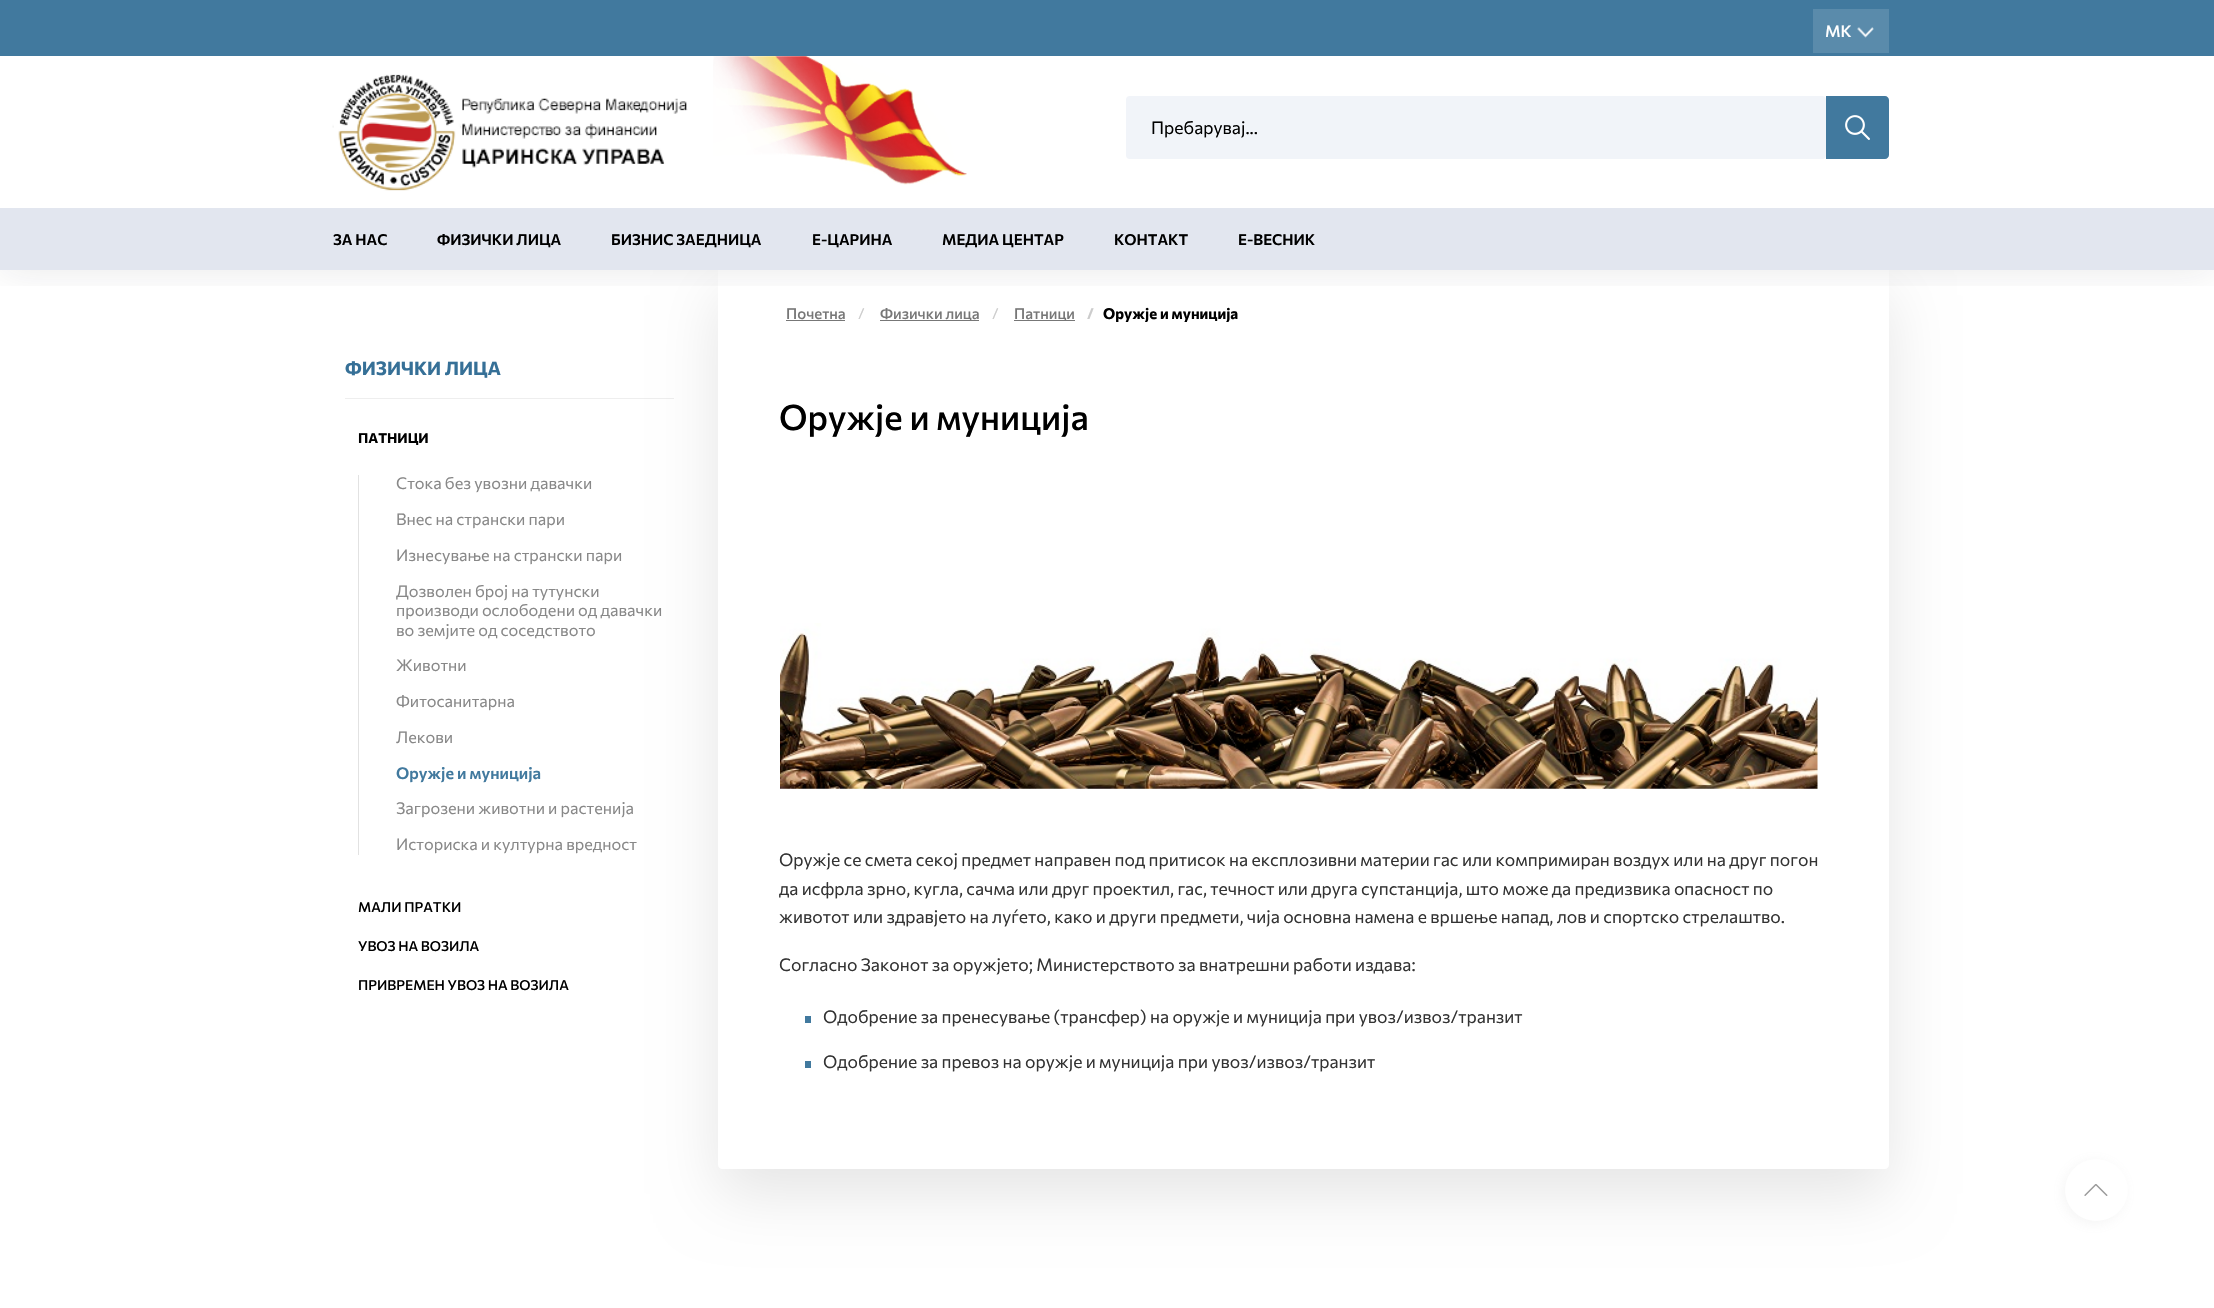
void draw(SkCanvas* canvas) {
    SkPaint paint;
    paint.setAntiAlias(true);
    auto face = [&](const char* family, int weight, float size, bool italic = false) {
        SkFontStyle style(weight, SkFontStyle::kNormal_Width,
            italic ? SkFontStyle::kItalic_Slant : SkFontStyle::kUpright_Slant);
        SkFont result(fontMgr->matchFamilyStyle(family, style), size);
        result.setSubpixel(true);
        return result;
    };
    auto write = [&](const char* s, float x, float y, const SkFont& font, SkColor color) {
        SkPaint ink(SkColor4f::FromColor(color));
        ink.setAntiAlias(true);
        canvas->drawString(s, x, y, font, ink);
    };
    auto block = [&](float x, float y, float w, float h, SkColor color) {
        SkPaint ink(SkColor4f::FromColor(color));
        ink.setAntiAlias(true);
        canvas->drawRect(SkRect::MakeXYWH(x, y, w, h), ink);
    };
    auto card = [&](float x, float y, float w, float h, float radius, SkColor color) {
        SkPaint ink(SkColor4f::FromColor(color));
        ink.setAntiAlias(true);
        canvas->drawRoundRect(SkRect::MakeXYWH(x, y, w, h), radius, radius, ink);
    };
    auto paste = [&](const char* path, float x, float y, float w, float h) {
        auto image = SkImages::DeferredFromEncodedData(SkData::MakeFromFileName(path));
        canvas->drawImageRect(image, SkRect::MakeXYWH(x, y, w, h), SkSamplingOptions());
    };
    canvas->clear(SK_ColorWHITE);
    block(345, 398, 329, 1, SkColorSetRGB(238, 238, 238));
    paint.setColor(SkColorSetARGB(26, 0, 0, 0));
    paint.setMaskFilter(SkMaskFilter::MakeBlur(kNormal_SkBlurStyle, 31));
    canvas->drawRoundRect(SkRect::MakeXYWH(718, 295, 1171, 899), 4, 4, paint);
    paint.setMaskFilter(nullptr);
    paint.setColor(SK_ColorWHITE);
    canvas->drawPath(SkPathBuilder().moveTo(718, 270).lineTo(1889, 270).lineTo(1889, 1165).cubicTo(1889, 1167, 1887, 1169, 1885, 1169).lineTo(722, 1169).cubicTo(720, 1169, 718, 1167, 718, 1165).close().detach(), paint);
    block(786, 320, 59, 1, SkColorSetRGB(119, 119, 119));
    block(880, 320, 99, 1, SkColorSetRGB(119, 119, 119));
    block(1014, 320, 61, 1, SkColorSetRGB(119, 119, 119));
    canvas->save();
    canvas->clipRect(SkRect::MakeXYWH(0, 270, 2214, 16));
    paint.setColor(SkColorSetARGB(26, 28, 29, 35));
    paint.setMaskFilter(SkMaskFilter::MakeBlur(kNormal_SkBlurStyle, 19));
    canvas->drawRect(SkRect::MakeXYWH(0, 0, 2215, 270), paint);
    paint.setMaskFilter(nullptr);
    canvas->restore();
    block(0, 0, 2214, 56, SkColorSetRGB(65, 121, 158));
    block(1813, 9, 76, 44, SkColorSetRGB(90, 139, 171));
    auto kFont1 = face("Commissioner", 500, 16.25f);
    write("MK", 1825, 37, kFont1, SK_ColorWHITE);
    paste("pic1.png", 1857, 27, 17, 11);
    paste("pic2.png", 713, 56, 254, 129);
    paste("pic3.png", 332, 74, 356, 117);
    card(1126, 96, 700, 63, 4, SkColorSetRGB(241, 244, 249));
    auto kFont2 = face("Commissioner", 400, 17.5f);
    write("Пребарувај...", 1151, 134, kFont2, SK_ColorBLACK);
    paint.setColor(SkColorSetRGB(65, 121, 158));
    canvas->drawPath(SkPathBuilder().moveTo(1826, 96).lineTo(1885, 96).cubicTo(1887, 96, 1889, 98, 1889, 100).lineTo(1889, 155).cubicTo(1889, 157, 1887, 159, 1885, 159).lineTo(1826, 159).close().detach(), paint);
    paste("pic4.png", 1845, 115, 25, 25);
    block(0, 208, 2214, 62, SkColorSetRGB(226, 230, 239));
    auto kFont3 = face("Commissioner", 600, 15);
    write("ЗА НАС", 333, 245, kFont3, SK_ColorBLACK);
    write("ФИЗИЧКИ ЛИЦА", 437, 245, kFont3, SK_ColorBLACK);
    write("БИЗНИС ЗАЕДНИЦА", 611, 245, kFont3, SK_ColorBLACK);
    write("Е-ЦАРИНА", 812, 245, kFont3, SK_ColorBLACK);
    write("МЕДИА ЦЕНТАР", 942, 245, kFont3, SK_ColorBLACK);
    write("КОНТАКТ", 1114, 245, kFont3, SK_ColorBLACK);
    write("Е-ВЕСНИК", 1238, 245, kFont3, SK_ColorBLACK);
    auto kFont4 = face("Commissioner", 700, 18.75f);
    write("ФИЗИЧКИ ЛИЦА", 345, 375, kFont4, SkColorSetRGB(54, 112, 151));
    auto kFont5 = face("Commissioner", 700, 13.75f);
    write("ПАТНИЦИ", 358, 443, kFont5, SK_ColorBLACK);
    block(358, 475, 1, 380, SkColorSetRGB(226, 226, 226));
    auto kFont6 = face("Commissioner", 400, 16.25f);
    write("Стока без увозни давачки", 396, 489, kFont6, SkColorSetRGB(136, 136, 136));
    write("Внес на странски пари", 396, 525, kFont6, SkColorSetRGB(136, 136, 136));
    write("Изнесување на странски пари", 396, 561, kFont6, SkColorSetRGB(136, 136, 136));
    write("Дозволен број на тутунски", 396, 597, kFont6, SkColorSetRGB(136, 136, 136));
    write("производи ослободени од давачки", 396, 616, kFont6, SkColorSetRGB(136, 136, 136));
    write("во земјите од соседството", 396, 636, kFont6, SkColorSetRGB(136, 136, 136));
    write("Животни", 396, 671, kFont6, SkColorSetRGB(136, 136, 136));
    write("Фитосанитарна", 396, 707, kFont6, SkColorSetRGB(136, 136, 136));
    write("Лекови", 396, 743, kFont6, SkColorSetRGB(136, 136, 136));
    auto kFont7 = face("Commissioner", 600, 16.25f);
    write("Оружје и муниција", 396, 779, kFont7, SkColorSetRGB(65, 121, 158));
    write("Загрозени животни и растенија", 396, 814, kFont6, SkColorSetRGB(136, 136, 136));
    write("Историска и културна вредност", 396, 850, kFont6, SkColorSetRGB(136, 136, 136));
    auto kFont8 = face("Commissioner", 500, 13.75f);
    write("МАЛИ ПРАТКИ", 358, 912, kFont8, SK_ColorBLACK);
    write("УВОЗ НА ВОЗИЛА", 358, 951, kFont8, SK_ColorBLACK);
    write("ПРИВРЕМЕН УВОЗ НА ВОЗИЛА", 358, 990, kFont8, SK_ColorBLACK);
    auto kFont9 = face("Commissioner", 500, 15);
    write("Почетна", 786, 319, kFont9, SkColorSetRGB(119, 119, 119));
    auto kFont10 = face("Commissioner", 400, 15);
    write("/", 858, 319, kFont10, SkColorSetRGB(204, 204, 204));
    write("Физички лица", 880, 319, kFont9, SkColorSetRGB(119, 119, 119));
    write("/", 992, 319, kFont10, SkColorSetRGB(204, 204, 204));
    write("Патници", 1014, 319, kFont9, SkColorSetRGB(119, 119, 119));
    auto kFont11 = face("Commissioner", 700, 15);
    write("/", 1087, 319, kFont11, SkColorSetRGB(204, 204, 204));
    write("Оружје и муниција", 1103, 319, kFont11, SK_ColorBLACK);
    auto kFont12 = face("Commissioner", 500, 35);
    write("Оружје и муниција", 779, 430, kFont12, SK_ColorBLACK);
    paste("pic5.png", 780, 623, 1038, 166);
    write("Оружје се смета секој предмет направен под притисок на експлозивни материи гас или компримиран воздух или на друг погон", 779, 866, kFont2, SkColorSetRGB(51, 51, 51));
    write("да исфрла зрно, кугла, сачма или друг проектил, гас, течност или друга супстанција, што може да предизвика опасност по", 779, 895, kFont2, SkColorSetRGB(51, 51, 51));
    write("животот или здравјето на луѓето, како и други предмети, чија основна намена е вршење напад, лов и спортско стрелаштво.", 779, 923, kFont2, SkColorSetRGB(51, 51, 51));
    write("Согласно Законот за оружјето; Министерството за внатрешни работи издава:", 779, 971, kFont2, SkColorSetRGB(51, 51, 51));
    block(805, 1016, 6, 7, SkColorSetRGB(65, 121, 158));
    write("Одобрение за пренесување (трансфер) на оружје и муниција при увоз/извоз/транзит", 823, 1023, kFont2, SkColorSetRGB(51, 51, 51));
    block(805, 1061, 6, 7, SkColorSetRGB(65, 121, 158));
    write("Одобрение за превоз на оружје и муниција при увоз/извоз/транзит", 823, 1068, kFont2, SkColorSetRGB(51, 51, 51));
    paint.setColor(SkColorSetARGB(26, 153, 153, 153));
    paint.setMaskFilter(SkMaskFilter::MakeBlur(kNormal_SkBlurStyle, 6));
    canvas->drawRoundRect(SkRect::MakeXYWH(2063, 1161, 62, 63), 31, 31, paint);
    paint.setMaskFilter(nullptr);
    paint.setColor(SK_ColorWHITE);
    canvas->drawPath(SkPathBuilder().moveTo(2065, 1190).cubicTo(2065, 1173, 2079, 1159, 2096, 1159).cubicTo(2114, 1159, 2128, 1173, 2128, 1190).cubicTo(2128, 1207, 2114, 1221, 2096, 1221).cubicTo(2079, 1221, 2065, 1207, 2065, 1190).close().detach(), paint);
    paste("pic6.png", 2084, 1184, 24, 12);
}
